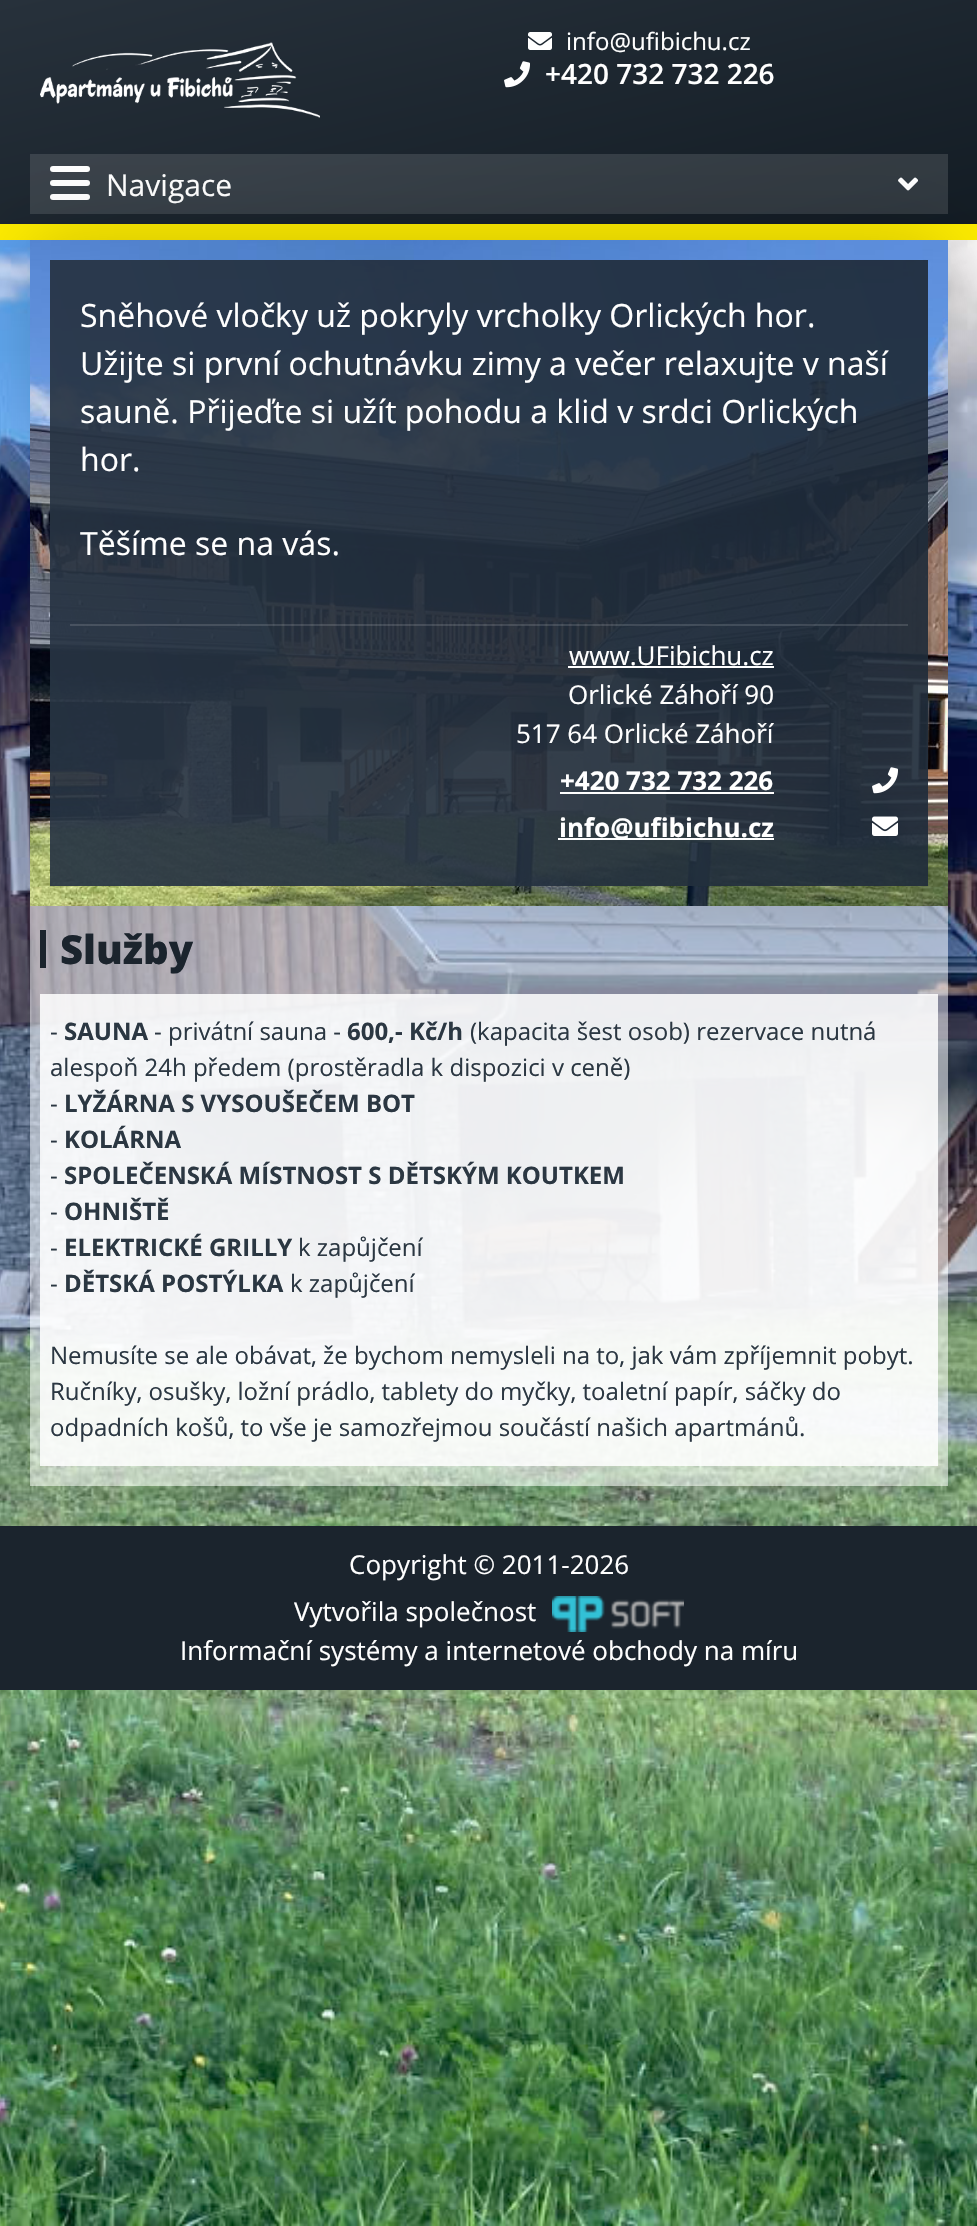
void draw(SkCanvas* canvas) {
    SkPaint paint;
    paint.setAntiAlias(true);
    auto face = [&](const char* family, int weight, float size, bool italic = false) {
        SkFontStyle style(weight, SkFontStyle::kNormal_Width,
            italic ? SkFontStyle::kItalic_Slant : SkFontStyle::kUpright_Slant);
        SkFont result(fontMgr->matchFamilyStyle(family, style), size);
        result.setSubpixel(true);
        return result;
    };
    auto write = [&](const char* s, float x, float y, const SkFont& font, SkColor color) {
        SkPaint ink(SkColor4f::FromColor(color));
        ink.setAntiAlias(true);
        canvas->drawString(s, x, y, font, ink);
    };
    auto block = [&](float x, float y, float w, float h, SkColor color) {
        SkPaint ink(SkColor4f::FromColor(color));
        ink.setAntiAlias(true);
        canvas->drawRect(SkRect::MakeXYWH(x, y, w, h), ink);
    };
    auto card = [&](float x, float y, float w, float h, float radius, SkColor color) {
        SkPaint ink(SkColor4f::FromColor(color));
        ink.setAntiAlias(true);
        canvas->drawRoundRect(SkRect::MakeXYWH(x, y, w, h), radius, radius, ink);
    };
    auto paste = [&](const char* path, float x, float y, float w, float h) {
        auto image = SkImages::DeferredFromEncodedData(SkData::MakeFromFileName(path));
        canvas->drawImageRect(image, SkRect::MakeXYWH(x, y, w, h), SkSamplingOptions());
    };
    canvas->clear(SK_ColorWHITE);
    paste("pic1.png", 0, 240, 977, 1986);
    {
        const SkColor colors[] = {SkColorSetRGB(39, 49, 59), SkColorSetRGB(18, 27, 35)};
        const float stops[] = {0, 1};
        const SkPoint ends[] = {{438, -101}, {540, 341}};
        paint.setShader(SkGradientShader::MakeLinear(ends, colors, stops, 2, SkTileMode::kClamp));
        paint.setAlpha(255);
    }
    canvas->drawRect(SkRect::MakeXYWH(0, 0, 977, 224), paint);
    paste("pic2.png", 40, 42, 280, 76);
    paste("pic3.png", 528, 32, 24, 18);
    auto kFont1 = face("Open Sans", 400, 24);
    write("info@ufibichu.cz", 566, 50, kFont1, SK_ColorWHITE);
    paste("pic4.png", 504, 61, 26, 27);
    auto kFont2 = face("Open Sans", 600, 28);
    write("+420 732 732 226", 545, 84, kFont2, SK_ColorWHITE);
    block(30, 154, 918, 60, SkColorSetARGB(31, 255, 255, 255));
    card(50, 180, 40, 6, 3, SK_ColorWHITE);
    card(50, 166, 40, 6, 3, SK_ColorWHITE);
    card(50, 194, 40, 6, 3, SK_ColorWHITE);
    auto kFont3 = face("Open Sans", 400, 30);
    write("Navigace", 106, 196, kFont3, SK_ColorWHITE);
    paste("pic5.png", 898, 177, 20, 14);
    block(0, 224, 977, 16, SkColorSetRGB(255, 237, 0));
    paint.setShader(nullptr);
    paint.setColor(SkColorSetARGB(51, 0, 0, 0));
    paint.setMaskFilter(SkMaskFilter::MakeBlur(kNormal_SkBlurStyle, 37));
    canvas->drawRect(SkRect::MakeXYWH(30, 240, 918, 666), paint);
    paint.setMaskFilter(nullptr);
    canvas->save();
    canvas->clipPath(SkPathBuilder(SkPathFillType::kEvenOdd).moveTo(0, 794).lineTo(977, 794).lineTo(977, 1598).lineTo(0, 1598).close().moveTo(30, 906).lineTo(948, 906).lineTo(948, 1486).lineTo(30, 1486).close().detach(), true);
    paint.setMaskFilter(SkMaskFilter::MakeBlur(kNormal_SkBlurStyle, 37));
    canvas->drawRect(SkRect::MakeXYWH(30, 906, 918, 580), paint);
    paint.setMaskFilter(nullptr);
    canvas->restore();
    paste("pic6.png", 30, 240, 918, 666);
    block(50, 260, 878, 626, SkColorSetARGB(219, 40, 55, 75));
    {
        const SkColor colors[] = {SkColorSetARGB(110, 39, 49, 59), SkColorSetARGB(110, 18, 27, 35)};
        const float stops[] = {0, 1};
        const SkPoint ends[] = {{-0.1f, 732}, {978, 414}};
        paint.setShader(SkGradientShader::MakeLinear(ends, colors, stops, 2, SkTileMode::kClamp));
        paint.setAlpha(255);
    }
    canvas->drawRect(SkRect::MakeXYWH(50, 260, 878, 626), paint);
    auto kFont4 = face("Open Sans", 400, 32);
    write("Sněhové vločky už pokryly vrcholky Orlických hor.", 80, 327, kFont4, SK_ColorWHITE);
    write("Užijte si první ochutnávku zimy a večer relaxujte v naší", 80, 375, kFont4, SK_ColorWHITE);
    write("sauně. Přijeďte si užít pohodu a klid v srdci Orlických", 80, 423, kFont4, SK_ColorWHITE);
    write("hor.", 80, 471, kFont4, SK_ColorWHITE);
    write("Těšíme se na vás.", 80, 555, kFont4, SK_ColorWHITE);
    block(70, 624, 838, 2, SkColorSetARGB(33, 255, 255, 255));
    auto kFont5 = face("Open Sans", 400, 26);
    write("www.UFibichu.cz", 569, 665, kFont5, SK_ColorWHITE);
    block(568, 666, 206, 2, SK_ColorWHITE);
    write("Orlické Záhoří 90", 568, 704, kFont5, SK_ColorWHITE);
    write("517 64 Orlické Záhoří", 516, 743, kFont5, SK_ColorWHITE);
    auto kFont6 = face("Open Sans", 700, 26);
    write("+420 732 732 226", 560, 790, kFont6, SK_ColorWHITE);
    block(560, 792, 214, 2, SK_ColorWHITE);
    paste("pic7.png", 872, 767, 26, 27);
    block(558, 838, 216, 2, SK_ColorWHITE);
    write("info@ufibichu.cz", 559, 837, kFont6, SK_ColorWHITE);
    paste("pic8.png", 872, 816, 26, 20);
    block(30, 906, 918, 580, SkColorSetARGB(133, 255, 255, 255));
    block(40, 930, 6, 38, SkColorSetRGB(27, 36, 45));
    auto kFont7 = face("Open Sans", 800, 40);
    write("Služby", 60, 964, kFont7, SkColorSetRGB(27, 36, 45));
    block(40, 994, 898, 472, SkColorSetARGB(217, 255, 255, 255));
    write("-", 50, 1040, kFont1, SkColorSetRGB(43, 55, 66));
    auto kFont8 = face("Open Sans", 700, 24);
    write("SAUNA", 64, 1040, kFont8, SkColorSetRGB(43, 55, 66));
    write("- privátní sauna -", 154, 1040, kFont1, SkColorSetRGB(43, 55, 66));
    write("600,- Kč/h", 347, 1040, kFont8, SkColorSetRGB(43, 55, 66));
    write("(kapacita šest osob) rezervace nutná", 470, 1040, kFont1, SkColorSetRGB(43, 55, 66));
    write("alespoň 24h předem (prostěradla k dispozici v ceně)", 50, 1076, kFont1, SkColorSetRGB(43, 55, 66));
    write("-", 50, 1112, kFont1, SkColorSetRGB(43, 55, 66));
    write("LYŽÁRNA S VYSOUŠEČEM BOT", 64, 1112, kFont8, SkColorSetRGB(43, 55, 66));
    write("-", 50, 1148, kFont1, SkColorSetRGB(43, 55, 66));
    write("KOLÁRNA", 64, 1148, kFont8, SkColorSetRGB(43, 55, 66));
    write("-", 50, 1184, kFont1, SkColorSetRGB(43, 55, 66));
    write("SPOLEČENSKÁ MÍSTNOST S DĚTSKÝM KOUTKEM", 64, 1184, kFont8, SkColorSetRGB(43, 55, 66));
    write("-", 50, 1220, kFont1, SkColorSetRGB(43, 55, 66));
    write("OHNIŠTĚ", 64, 1220, kFont8, SkColorSetRGB(43, 55, 66));
    write("-", 50, 1256, kFont1, SkColorSetRGB(43, 55, 66));
    write("ELEKTRICKÉ GRILLY", 64, 1256, kFont8, SkColorSetRGB(43, 55, 66));
    write("k zapůjčení", 298, 1256, kFont1, SkColorSetRGB(43, 55, 66));
    write("-", 50, 1292, kFont1, SkColorSetRGB(43, 55, 66));
    write("DĚTSKÁ POSTÝLKA", 64, 1292, kFont8, SkColorSetRGB(43, 55, 66));
    write("k zapůjčení", 290, 1292, kFont1, SkColorSetRGB(43, 55, 66));
    write("Nemusíte se ale obávat, že bychom nemysleli na to, jak vám zpříjemnit pobyt.", 50, 1364, kFont1, SkColorSetRGB(43, 55, 66));
    write("Ručníky, osušky, ložní prádlo, tablety do myčky, toaletní papír, sáčky do", 50, 1400, kFont1, SkColorSetRGB(43, 55, 66));
    write("odpadních košů, to vše je samozřejmou součástí našich apartmánů.", 50, 1436, kFont1, SkColorSetRGB(43, 55, 66));
    block(0, 1526, 977, 164, SkColorSetRGB(27, 36, 45));
    write("Copyright © 2011-2026", 349, 1574, kFont5, SK_ColorWHITE);
    write("Vytvořila společnost", 294, 1621, kFont5, SK_ColorWHITE);
    paste("pic9.png", 552, 1596, 132, 36);
    write("Informační systémy a internetové obchody na míru", 180, 1660, kFont5, SK_ColorWHITE);
}
